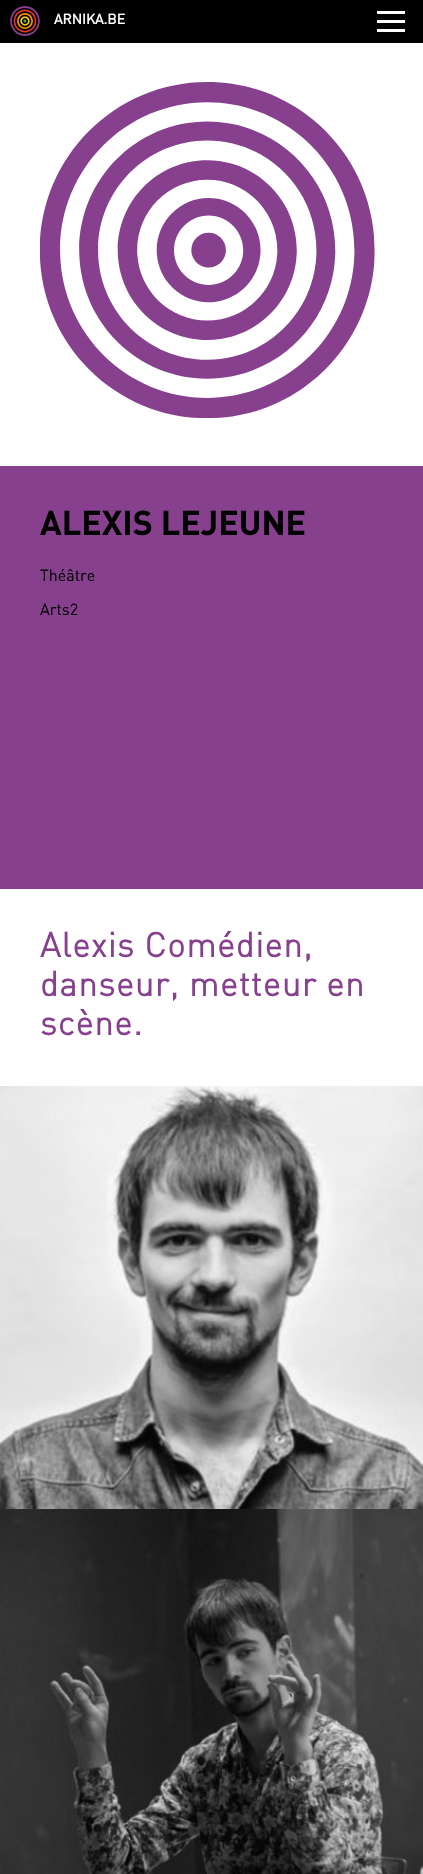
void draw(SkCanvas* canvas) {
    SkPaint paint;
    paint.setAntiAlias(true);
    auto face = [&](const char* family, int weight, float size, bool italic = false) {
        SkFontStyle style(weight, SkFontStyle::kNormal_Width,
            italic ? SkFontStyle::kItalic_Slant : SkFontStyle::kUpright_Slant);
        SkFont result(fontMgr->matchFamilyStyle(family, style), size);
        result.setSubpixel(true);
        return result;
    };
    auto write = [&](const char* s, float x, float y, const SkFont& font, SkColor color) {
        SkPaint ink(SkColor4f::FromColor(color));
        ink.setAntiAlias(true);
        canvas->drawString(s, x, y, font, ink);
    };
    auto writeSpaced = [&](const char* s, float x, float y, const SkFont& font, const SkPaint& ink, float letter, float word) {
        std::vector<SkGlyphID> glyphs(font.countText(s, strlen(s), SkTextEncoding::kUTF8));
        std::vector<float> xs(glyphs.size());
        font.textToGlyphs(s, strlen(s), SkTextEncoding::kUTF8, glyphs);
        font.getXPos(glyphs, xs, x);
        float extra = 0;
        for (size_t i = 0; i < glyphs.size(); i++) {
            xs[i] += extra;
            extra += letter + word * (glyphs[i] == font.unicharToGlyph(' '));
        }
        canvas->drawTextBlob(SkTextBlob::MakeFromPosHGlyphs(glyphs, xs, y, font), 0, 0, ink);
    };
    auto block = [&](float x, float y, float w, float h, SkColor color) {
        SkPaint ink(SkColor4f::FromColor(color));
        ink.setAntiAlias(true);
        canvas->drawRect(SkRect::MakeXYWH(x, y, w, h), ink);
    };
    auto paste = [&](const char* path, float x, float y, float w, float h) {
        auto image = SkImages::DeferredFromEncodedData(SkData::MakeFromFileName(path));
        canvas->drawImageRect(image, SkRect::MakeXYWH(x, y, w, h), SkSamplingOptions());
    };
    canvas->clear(SK_ColorWHITE);
    block(0, 0, 423, 43, SK_ColorBLACK);
    paste("pic1.png", 10, 6, 30, 30);
    auto kFont1 = face("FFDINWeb", 700, 14);
    write("ARNIKA.BE", 54, 24, kFont1, SK_ColorWHITE);
    block(377, 11, 28, 3, SK_ColorWHITE);
    block(377, 20, 28, 3, SK_ColorWHITE);
    block(377, 29, 28, 3, SK_ColorWHITE);
    paste("pic2.png", 39, 82, 336, 337);
    block(0, 466, 423, 423, SkColorSetRGB(134, 64, 141));
    auto kFont2 = face("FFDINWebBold", 400, 34);
    write("ALEXIS LEJEUNE", 40, 535, kFont2, SK_ColorBLACK);
    auto kFont3 = face("FFDINWeb", 400, 16);
    write("Théâtre", 40, 581, kFont3, SK_ColorBLACK);
    write("Arts2", 40, 615, kFont3, SK_ColorBLACK);
    auto kFont4 = face("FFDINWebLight", 700, 34);
    paint.setColor(SkColorSetRGB(134, 64, 141));
    writeSpaced("Alexis Comédien,", 40, 957, kFont4, paint, 1, 0);
    writeSpaced("danseur, metteur en", 40, 996, kFont4, paint, 1, 0);
    writeSpaced("scène.", 40, 1035, kFont4, paint, 1, 0);
    paste("pic3.png", 0, 1086, 423, 423);
    paste("pic4.png", 0, 1509, 423, 365);
}
